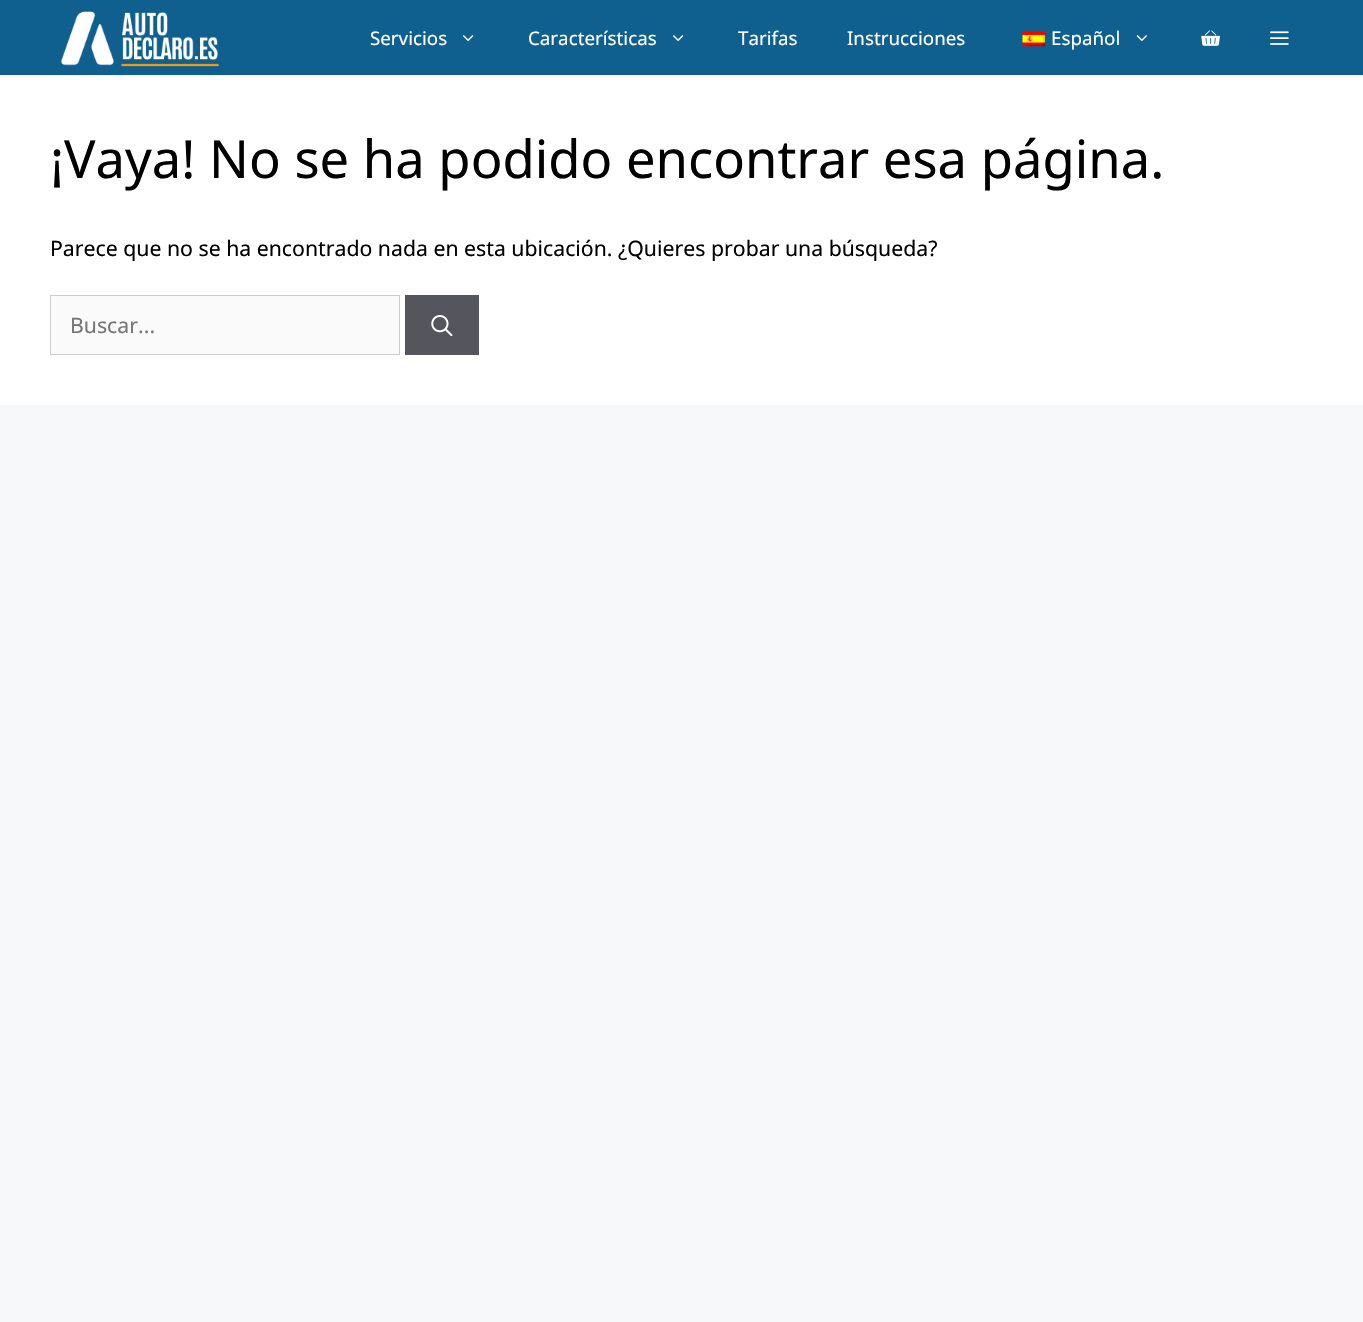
void draw(SkCanvas* canvas) {
    SkPaint paint;
    paint.setAntiAlias(true);
    auto face = [&](const char* family, int weight, float size, bool italic = false) {
        SkFontStyle style(weight, SkFontStyle::kNormal_Width,
            italic ? SkFontStyle::kItalic_Slant : SkFontStyle::kUpright_Slant);
        SkFont result(fontMgr->matchFamilyStyle(family, style), size);
        result.setSubpixel(true);
        return result;
    };
    auto write = [&](const char* s, float x, float y, const SkFont& font, SkColor color) {
        SkPaint ink(SkColor4f::FromColor(color));
        ink.setAntiAlias(true);
        canvas->drawString(s, x, y, font, ink);
    };
    auto block = [&](float x, float y, float w, float h, SkColor color) {
        SkPaint ink(SkColor4f::FromColor(color));
        ink.setAntiAlias(true);
        canvas->drawRect(SkRect::MakeXYWH(x, y, w, h), ink);
    };
    auto paste = [&](const char* path, float x, float y, float w, float h) {
        auto image = SkImages::DeferredFromEncodedData(SkData::MakeFromFileName(path));
        canvas->drawImageRect(image, SkRect::MakeXYWH(x, y, w, h), SkSamplingOptions());
    };
    canvas->clear(SkColorSetRGB(247, 248, 249));
    block(0, 0, 1363, 75, SkColorSetRGB(15, 96, 143));
    paste("pic1.png", 61, 11, 158, 56);
    auto kFont1 = face("Noto Sans", 400, 18.75f);
    write("Servicios", 370, 45, kFont1, SK_ColorWHITE);
    paste("pic2.png", 463, 35, 11, 7);
    write("Características", 528, 45, kFont1, SK_ColorWHITE);
    paste("pic2.png", 673, 35, 11, 7);
    write("Tarifas", 738, 45, kFont1, SK_ColorWHITE);
    write("Instrucciones", 847, 45, kFont1, SK_ColorWHITE);
    paste("pic3.png", 1022, 31, 23, 16);
    write("Español", 1051, 45, kFont1, SK_ColorWHITE);
    paste("pic4.png", 1136, 35, 11, 7);
    paste("pic5.png", 1201, 30, 19, 16);
    paste("pic6.png", 1270, 31, 19, 14);
    block(0, 76, 1363, 329, SK_ColorWHITE);
    auto kFont2 = face("Noto Sans", 400, 52.5f);
    write("¡Vaya! No se ha podido encontrar esa página.", 50, 178, kFont2, SK_ColorBLACK);
    auto kFont3 = face("Noto Sans", 400, 21.25f);
    write("Parece que no se ha encontrado nada en esta ubicación. ¿Quieres probar una búsqueda?", 50, 256, kFont3, SK_ColorBLACK);
    paint.setColor(SkColorSetRGB(250, 250, 250));
    canvas->drawRect(SkRect::MakeXYWH(50.5f, 295.5f, 349, 59), paint);
    paint.setStyle(SkPaint::kStroke_Style);
    paint.setStrokeWidth(1);
    paint.setColor(SkColorSetRGB(204, 204, 204));
    canvas->drawRect(SkRect::MakeXYWH(50.5f, 295.5f, 349, 59), paint);
    write("Buscar...", 70, 333, kFont3, SkColorSetRGB(117, 117, 117));
    block(405, 295, 74, 60, SkColorSetRGB(85, 85, 94));
    paste("pic7.png", 431, 315, 22, 21);
}
